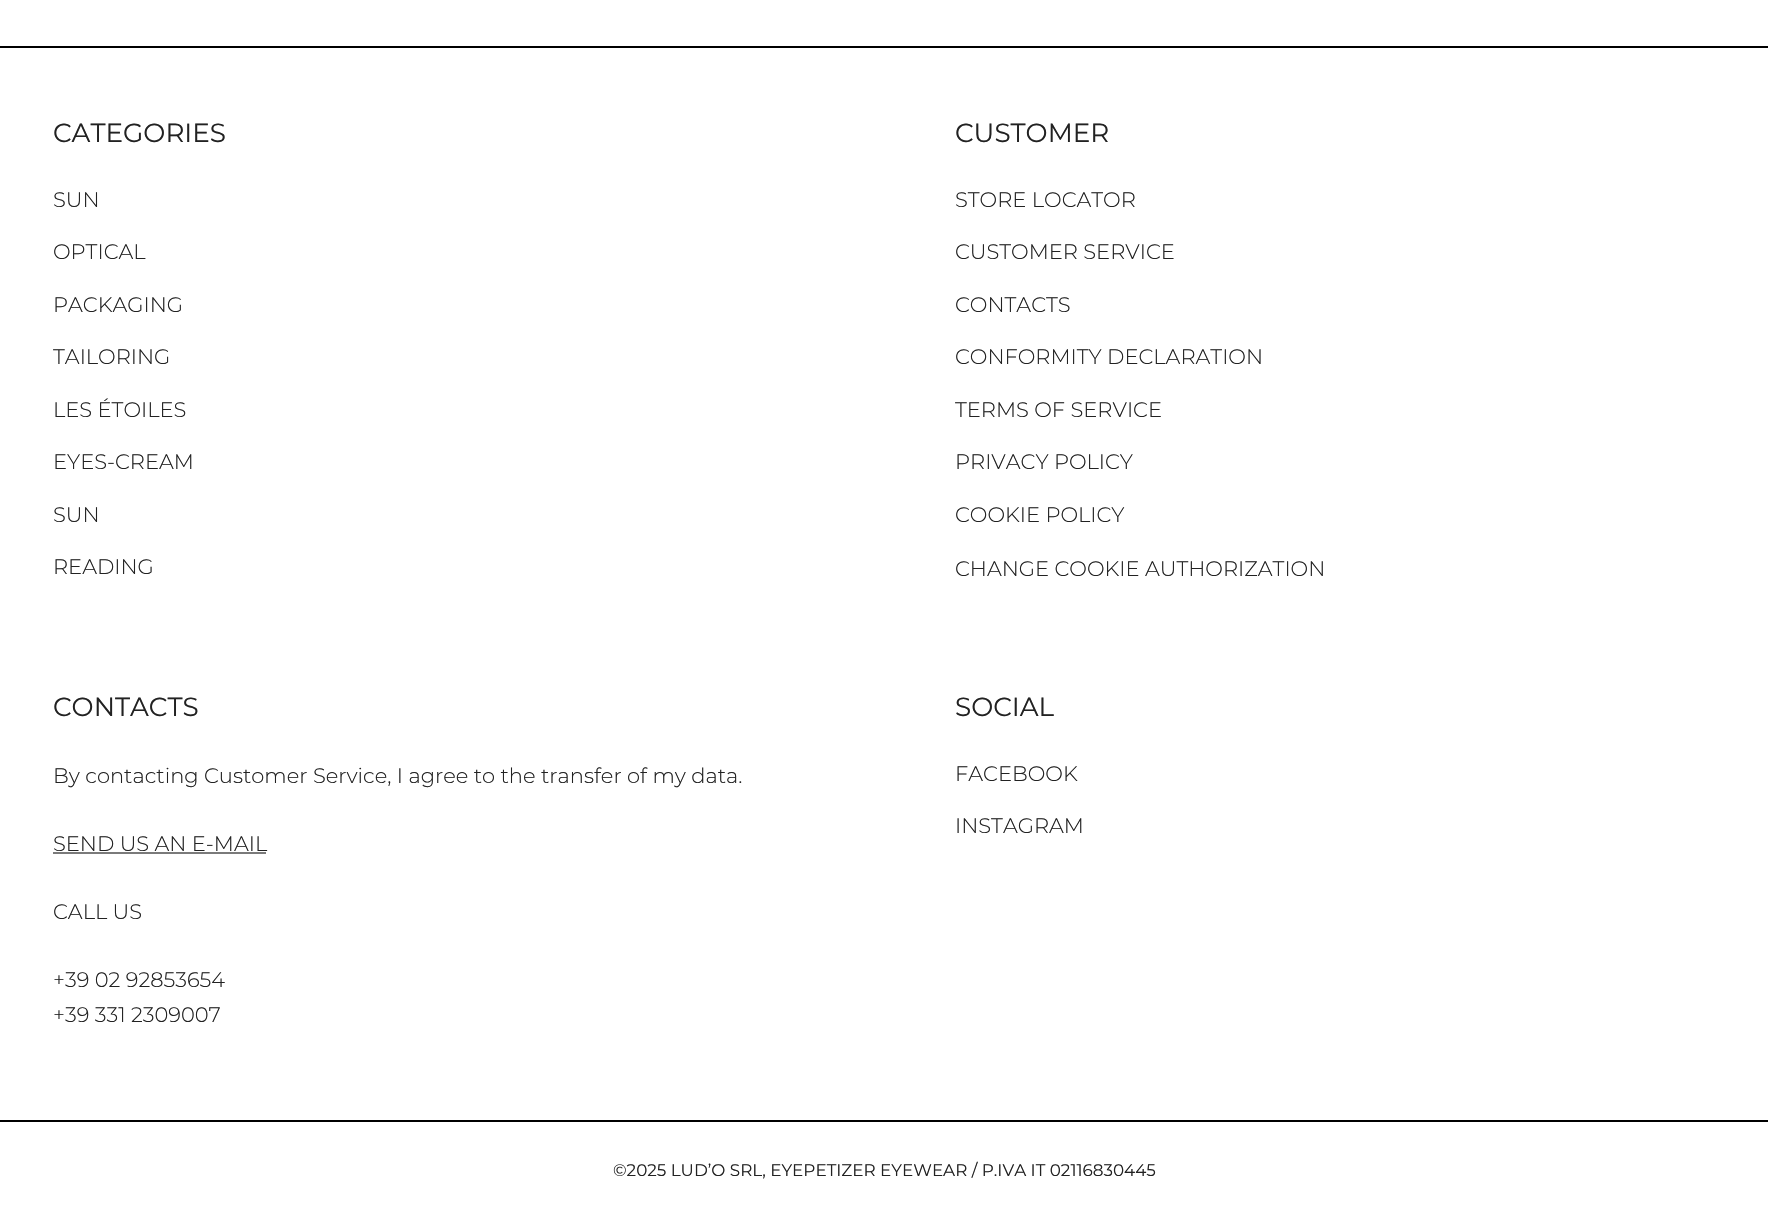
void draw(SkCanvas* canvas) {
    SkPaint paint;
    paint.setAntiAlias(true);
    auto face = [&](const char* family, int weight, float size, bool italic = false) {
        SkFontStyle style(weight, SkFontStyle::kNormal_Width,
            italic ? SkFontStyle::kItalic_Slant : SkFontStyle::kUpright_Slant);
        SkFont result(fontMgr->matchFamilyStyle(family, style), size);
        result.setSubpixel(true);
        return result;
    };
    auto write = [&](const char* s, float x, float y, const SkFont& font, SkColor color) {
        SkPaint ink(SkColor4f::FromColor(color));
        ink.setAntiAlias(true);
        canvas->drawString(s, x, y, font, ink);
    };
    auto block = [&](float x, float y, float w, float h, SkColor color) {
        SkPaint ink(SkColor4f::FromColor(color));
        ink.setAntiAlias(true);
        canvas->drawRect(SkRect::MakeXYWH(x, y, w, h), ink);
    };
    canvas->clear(SK_ColorWHITE);
    block(0, 46, 1768, 2, SK_ColorBLACK);
    auto kFont1 = face("Montserrat", 400, 26.25f);
    write("CATEGORIES", 53, 142, kFont1, SkColorSetRGB(34, 34, 34));
    auto kFont2 = face("Montserrat", 300, 21);
    write("SUN", 53, 207, kFont2, SkColorSetRGB(34, 34, 34));
    write("OPTICAL", 53, 259, kFont2, SkColorSetRGB(34, 34, 34));
    write("PACKAGING", 53, 312, kFont2, SkColorSetRGB(34, 34, 34));
    write("TAILORING", 53, 364, kFont2, SkColorSetRGB(34, 34, 34));
    write("LES ÉTOILES", 53, 417, kFont2, SkColorSetRGB(34, 34, 34));
    write("EYES-CREAM", 53, 469, kFont2, SkColorSetRGB(34, 34, 34));
    write("SUN", 53, 522, kFont2, SkColorSetRGB(34, 34, 34));
    write("READING", 53, 574, kFont2, SkColorSetRGB(34, 34, 34));
    write("CUSTOMER", 955, 142, kFont1, SkColorSetRGB(34, 34, 34));
    write("STORE LOCATOR", 955, 207, kFont2, SkColorSetRGB(34, 34, 34));
    write("CUSTOMER SERVICE", 955, 259, kFont2, SkColorSetRGB(34, 34, 34));
    write("CONTACTS", 955, 312, kFont2, SkColorSetRGB(34, 34, 34));
    write("CONFORMITY DECLARATION", 955, 364, kFont2, SkColorSetRGB(34, 34, 34));
    write("TERMS OF SERVICE", 955, 417, kFont2, SkColorSetRGB(34, 34, 34));
    write("PRIVACY POLICY", 955, 469, kFont2, SkColorSetRGB(34, 34, 34));
    write("COOKIE POLICY", 955, 522, kFont2, SkColorSetRGB(34, 34, 34));
    write("CHANGE COOKIE AUTHORIZATION", 955, 576, kFont2, SkColorSetRGB(34, 34, 34));
    write("CONTACTS", 53, 716, kFont1, SkColorSetRGB(34, 34, 34));
    write("By contacting Customer Service, I agree to the transfer of my data.", 53, 783, kFont2, SkColorSetRGB(34, 34, 34));
    write("SEND US AN E-MAIL", 53, 851, kFont2, SkColorSetRGB(34, 34, 34));
    block(53, 852, 213, 2, SkColorSetRGB(122, 122, 122));
    write("CALL US", 53, 919, kFont2, SkColorSetRGB(34, 34, 34));
    write("+39 02 92853654", 53, 987, kFont2, SkColorSetRGB(34, 34, 34));
    write("+39 331 2309007", 53, 1022, kFont2, SkColorSetRGB(34, 34, 34));
    write("SOCIAL", 955, 716, kFont1, SkColorSetRGB(34, 34, 34));
    write("FACEBOOK", 955, 781, kFont2, SkColorSetRGB(34, 34, 34));
    write("INSTAGRAM", 955, 833, kFont2, SkColorSetRGB(34, 34, 34));
    block(0, 1120, 1768, 2, SK_ColorBLACK);
    auto kFont3 = face("Montserrat", 400, 16.8f);
    write("©2025 LUD’O SRL, EYEPETIZER EYEWEAR / P.IVA IT 02116830445", 613, 1176, kFont3, SkColorSetRGB(34, 34, 34));
}
